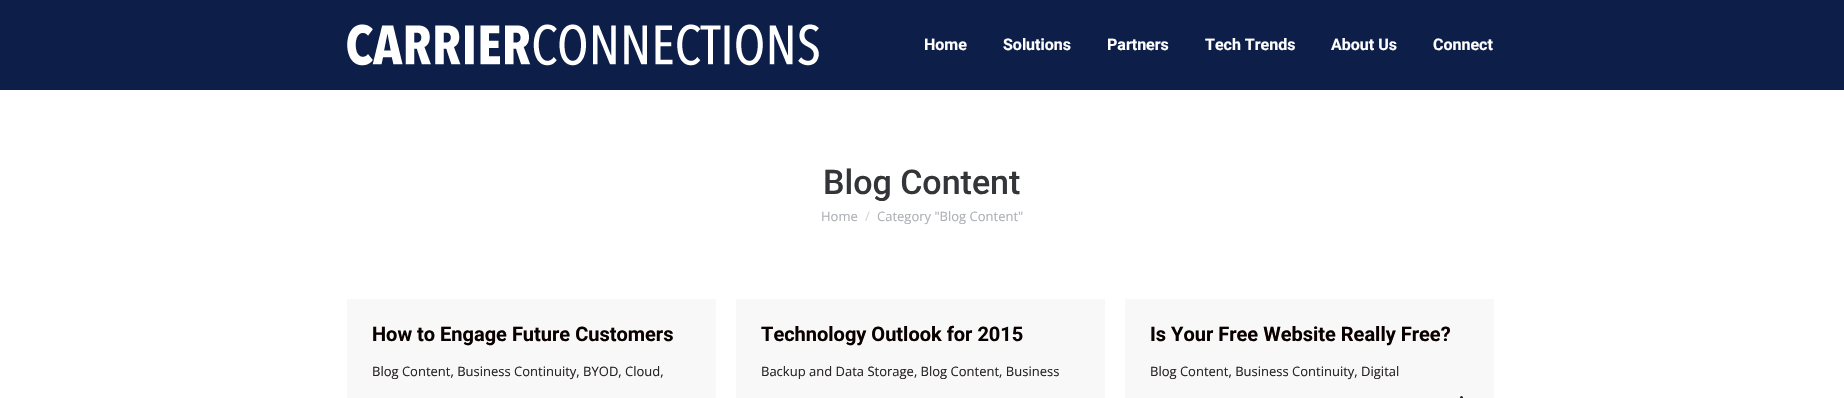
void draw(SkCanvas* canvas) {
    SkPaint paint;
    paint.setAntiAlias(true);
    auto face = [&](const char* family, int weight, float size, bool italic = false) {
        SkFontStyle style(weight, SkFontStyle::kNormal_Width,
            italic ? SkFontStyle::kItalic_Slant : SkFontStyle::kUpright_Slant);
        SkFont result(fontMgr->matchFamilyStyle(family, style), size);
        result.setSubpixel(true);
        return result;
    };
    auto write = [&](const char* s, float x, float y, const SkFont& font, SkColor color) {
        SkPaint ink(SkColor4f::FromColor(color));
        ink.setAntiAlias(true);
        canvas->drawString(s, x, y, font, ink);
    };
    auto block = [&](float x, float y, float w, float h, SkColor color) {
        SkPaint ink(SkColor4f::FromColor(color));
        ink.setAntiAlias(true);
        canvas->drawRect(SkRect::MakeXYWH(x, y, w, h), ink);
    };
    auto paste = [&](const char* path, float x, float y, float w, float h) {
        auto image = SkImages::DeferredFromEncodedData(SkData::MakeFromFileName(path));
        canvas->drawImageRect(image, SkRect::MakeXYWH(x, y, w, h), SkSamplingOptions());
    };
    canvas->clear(SK_ColorWHITE);
    block(0, 0, 1844, 90, SkColorSetRGB(13, 31, 73));
    paste("pic1.png", 347, 24, 472, 42);
    auto kFont1 = face("Roboto", 700, 16);
    write("Home", 924, 50, kFont1, SK_ColorWHITE);
    write("Solutions", 1003, 50, kFont1, SK_ColorWHITE);
    write("Partners", 1107, 50, kFont1, SK_ColorWHITE);
    write("Tech Trends", 1205, 50, kFont1, SK_ColorWHITE);
    write("About Us", 1331, 50, kFont1, SK_ColorWHITE);
    write("Connect", 1433, 50, kFont1, SK_ColorWHITE);
    auto kFont2 = face("Roboto", 500, 34);
    write("Blog Content", 823, 194, kFont2, SkColorSetRGB(51, 53, 57));
    auto kFont3 = face("Open Sans", 400, 13);
    write("Home", 821, 221, kFont3, SkColorSetRGB(173, 176, 182));
    write("/", 865, 221, kFont3, SkColorSetRGB(214, 216, 219));
    write("Category \"Blog Content\"", 877, 221, kFont3, SkColorSetRGB(173, 176, 182));
    block(347, 299, 369, 99, SkColorSetRGB(248, 248, 249));
    auto kFont4 = face("Roboto", 700, 20);
    write("How to Engage Future Customers", 372, 341, kFont4, SkColorSetRGB(10, 0, 0));
    write("Blog Content, Business Continuity, BYOD, Cloud,", 372, 376, kFont3, SkColorSetRGB(40, 35, 35));
    block(736, 299, 369, 99, SkColorSetRGB(248, 248, 249));
    write("Technology Outlook for 2015", 761, 341, kFont4, SkColorSetRGB(10, 0, 0));
    write("Backup and Data Storage, Blog Content, Business", 761, 376, kFont3, SkColorSetRGB(40, 35, 35));
    block(1125, 299, 369, 99, SkColorSetRGB(248, 248, 249));
    write("Is Your Free Website Really Free?", 1150, 341, kFont4, SkColorSetRGB(10, 0, 0));
    write("Blog Content, Business Continuity, Digital", 1150, 376, kFont3, SkColorSetRGB(40, 35, 35));
    paint.setColor(SkColorSetRGB(40, 35, 35));
    canvas->drawCircle(1461.5f, 397.5f, 1.5f, paint);
}
